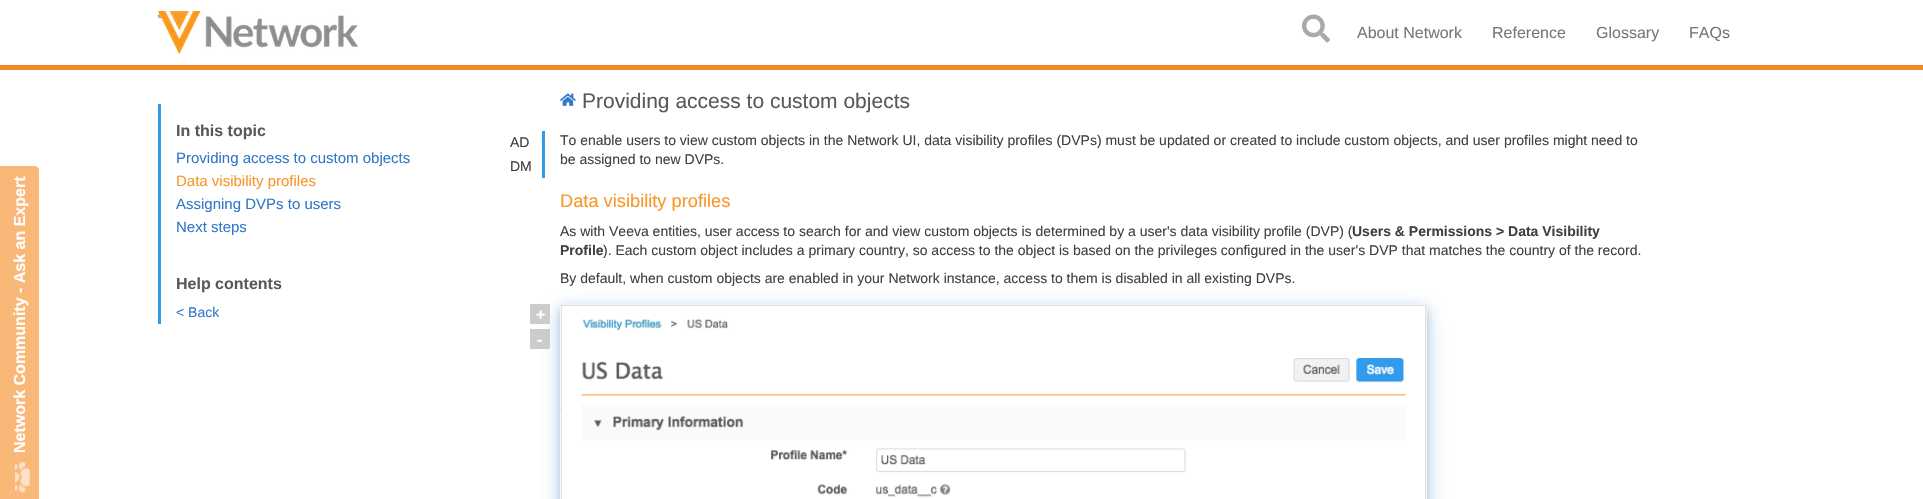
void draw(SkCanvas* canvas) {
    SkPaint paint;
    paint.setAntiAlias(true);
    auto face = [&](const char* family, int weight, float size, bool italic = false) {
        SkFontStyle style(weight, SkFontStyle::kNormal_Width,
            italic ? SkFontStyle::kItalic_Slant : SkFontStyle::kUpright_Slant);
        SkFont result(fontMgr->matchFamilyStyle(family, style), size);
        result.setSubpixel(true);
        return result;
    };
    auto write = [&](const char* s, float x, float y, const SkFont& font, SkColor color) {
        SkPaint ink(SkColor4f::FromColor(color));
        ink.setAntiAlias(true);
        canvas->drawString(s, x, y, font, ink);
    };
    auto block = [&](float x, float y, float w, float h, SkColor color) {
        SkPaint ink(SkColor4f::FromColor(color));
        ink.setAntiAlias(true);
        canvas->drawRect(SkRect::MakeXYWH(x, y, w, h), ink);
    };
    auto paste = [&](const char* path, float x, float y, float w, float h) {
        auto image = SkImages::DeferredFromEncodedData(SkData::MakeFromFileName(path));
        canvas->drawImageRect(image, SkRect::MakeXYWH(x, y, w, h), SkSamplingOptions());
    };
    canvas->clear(SK_ColorWHITE);
    block(0, 65, 1923, 5, SkColorSetRGB(245, 135, 30));
    paint.setColor(SkColorSetRGB(239, 239, 239));
    canvas->drawCircle(160, 16, 1.5f, paint);
    paint.setStyle(SkPaint::kStroke_Style);
    paint.setStrokeWidth(1);
    paint.setColor(SkColorSetRGB(118, 118, 118));
    canvas->drawCircle(160, 16, 1.5f, paint);
    paste("pic1.png", 158, 11, 200, 43);
    paste("pic2.png", 1302, 14, 28, 29);
    auto kFont1 = face("Liberation Sans", 400, 16);
    write("About Network", 1357, 38, kFont1, SkColorSetRGB(119, 119, 119));
    write("Reference", 1492, 38, kFont1, SkColorSetRGB(119, 119, 119));
    write("Glossary", 1596, 38, kFont1, SkColorSetRGB(119, 119, 119));
    write("FAQs", 1689, 38, kFont1, SkColorSetRGB(119, 119, 119));
    paint.setStyle(SkPaint::kFill_Style);
    paint.setColor(SkColorSetRGB(249, 183, 120));
    canvas->drawPath(SkPathBuilder().moveTo(-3, 499).lineTo(-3, 170).cubicTo(-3, 168, -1, 166, 1, 166).lineTo(35, 166).cubicTo(37, 166, 39, 168, 39, 170).lineTo(39, 499).cubicTo(39, 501, 37, 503, 35, 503).lineTo(1, 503).cubicTo(-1, 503, -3, 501, -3, 499).close().detach(), paint);
    auto kFont2 = face("Liberation Sans", 700, 16);
    canvas->save();
    canvas->rotate(-90, 25, 453);
    write("Network Community - Ask an Expert", 25, 453, kFont2, SK_ColorWHITE);
    canvas->restore();
    paste("pic3.png", 15, 462, 16, 31);
    block(158, 104, 3, 220, SkColorSetRGB(50, 154, 234));
    write("In this topic", 176, 136, kFont2, SkColorSetRGB(89, 89, 89));
    auto kFont3 = face("Liberation Sans", 400, 15);
    write("Providing access to custom objects", 176, 163, kFont3, SkColorSetRGB(50, 120, 200));
    write("Data visibility profiles", 176, 186, kFont3, SkColorSetRGB(248, 151, 40));
    write("Assigning DVPs to users", 176, 209, kFont3, SkColorSetRGB(50, 120, 200));
    write("Next steps", 176, 232, kFont3, SkColorSetRGB(50, 120, 200));
    write("Help contents", 176, 289, kFont2, SkColorSetRGB(89, 89, 89));
    auto kFont4 = face("Liberation Sans", 400, 14);
    write("< Back", 176, 317, kFont4, SkColorSetRGB(50, 120, 200));
    auto kFont5 = face("Liberation Sans", 400, 21);
    write("Providing access to custom objects", 582, 108, kFont5, SkColorSetRGB(89, 89, 89));
    block(542, 131, 3, 47, SkColorSetRGB(50, 154, 234));
    write("AD", 510, 147, kFont4, SkColorSetRGB(64, 64, 64));
    write("DM", 510, 171, kFont4, SkColorSetRGB(64, 64, 64));
    write("To enable users to view custom objects in the Network UI, data visibility profiles (DVPs) must be updated or created to include custom objects, and user profiles might need to", 560, 145, kFont4, SkColorSetRGB(64, 64, 64));
    write("be assigned to new DVPs.", 560, 164, kFont4, SkColorSetRGB(64, 64, 64));
    auto kFont6 = face("Liberation Sans", 400, 18.25f);
    write("Data visibility profiles", 560, 207, kFont6, SkColorSetRGB(248, 151, 40));
    write("As with Veeva entities, user access to search for and view custom objects is determined by a user's data visibility profile (DVP) (", 560, 236, kFont4, SkColorSetRGB(64, 64, 64));
    auto kFont7 = face("Liberation Sans", 700, 14);
    write("Users & Permissions > Data Visibility", 1352, 236, kFont7, SkColorSetRGB(64, 64, 64));
    write("Profile", 560, 255, kFont7, SkColorSetRGB(64, 64, 64));
    write("). Each custom object includes a primary country, so access to the object is based on the privileges configured in the user's DVP that matches the country of the record.", 603, 255, kFont4, SkColorSetRGB(64, 64, 64));
    write("By default, when custom objects are enabled in your Network instance, access to them is disabled in all existing DVPs.", 560, 283, kFont4, SkColorSetRGB(64, 64, 64));
    paint.setColor(SkColorSetARGB(77, 50, 120, 200));
    paint.setMaskFilter(SkMaskFilter::MakeBlur(kNormal_SkBlurStyle, 10));
    canvas->drawRect(SkRect::MakeXYWH(560, 310, 867, 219), paint);
    paint.setMaskFilter(nullptr);
    paint.setMaskFilter(SkMaskFilter::MakeBlur(kNormal_SkBlurStyle, 4));
    canvas->drawRect(SkRect::MakeXYWH(560, 308, 867, 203), paint);
    paint.setMaskFilter(nullptr);
    block(530, 304, 20, 20, SkColorSetRGB(204, 204, 204));
    write("+", 536, 320, kFont2, SK_ColorWHITE);
    block(530, 329, 20, 20, SkColorSetRGB(204, 204, 204));
    write("-", 537, 345, kFont2, SK_ColorWHITE);
    paste("pic4.png", 560, 304, 867, 195);
    paste("pic5.png", 560, 93, 16, 13);
}
